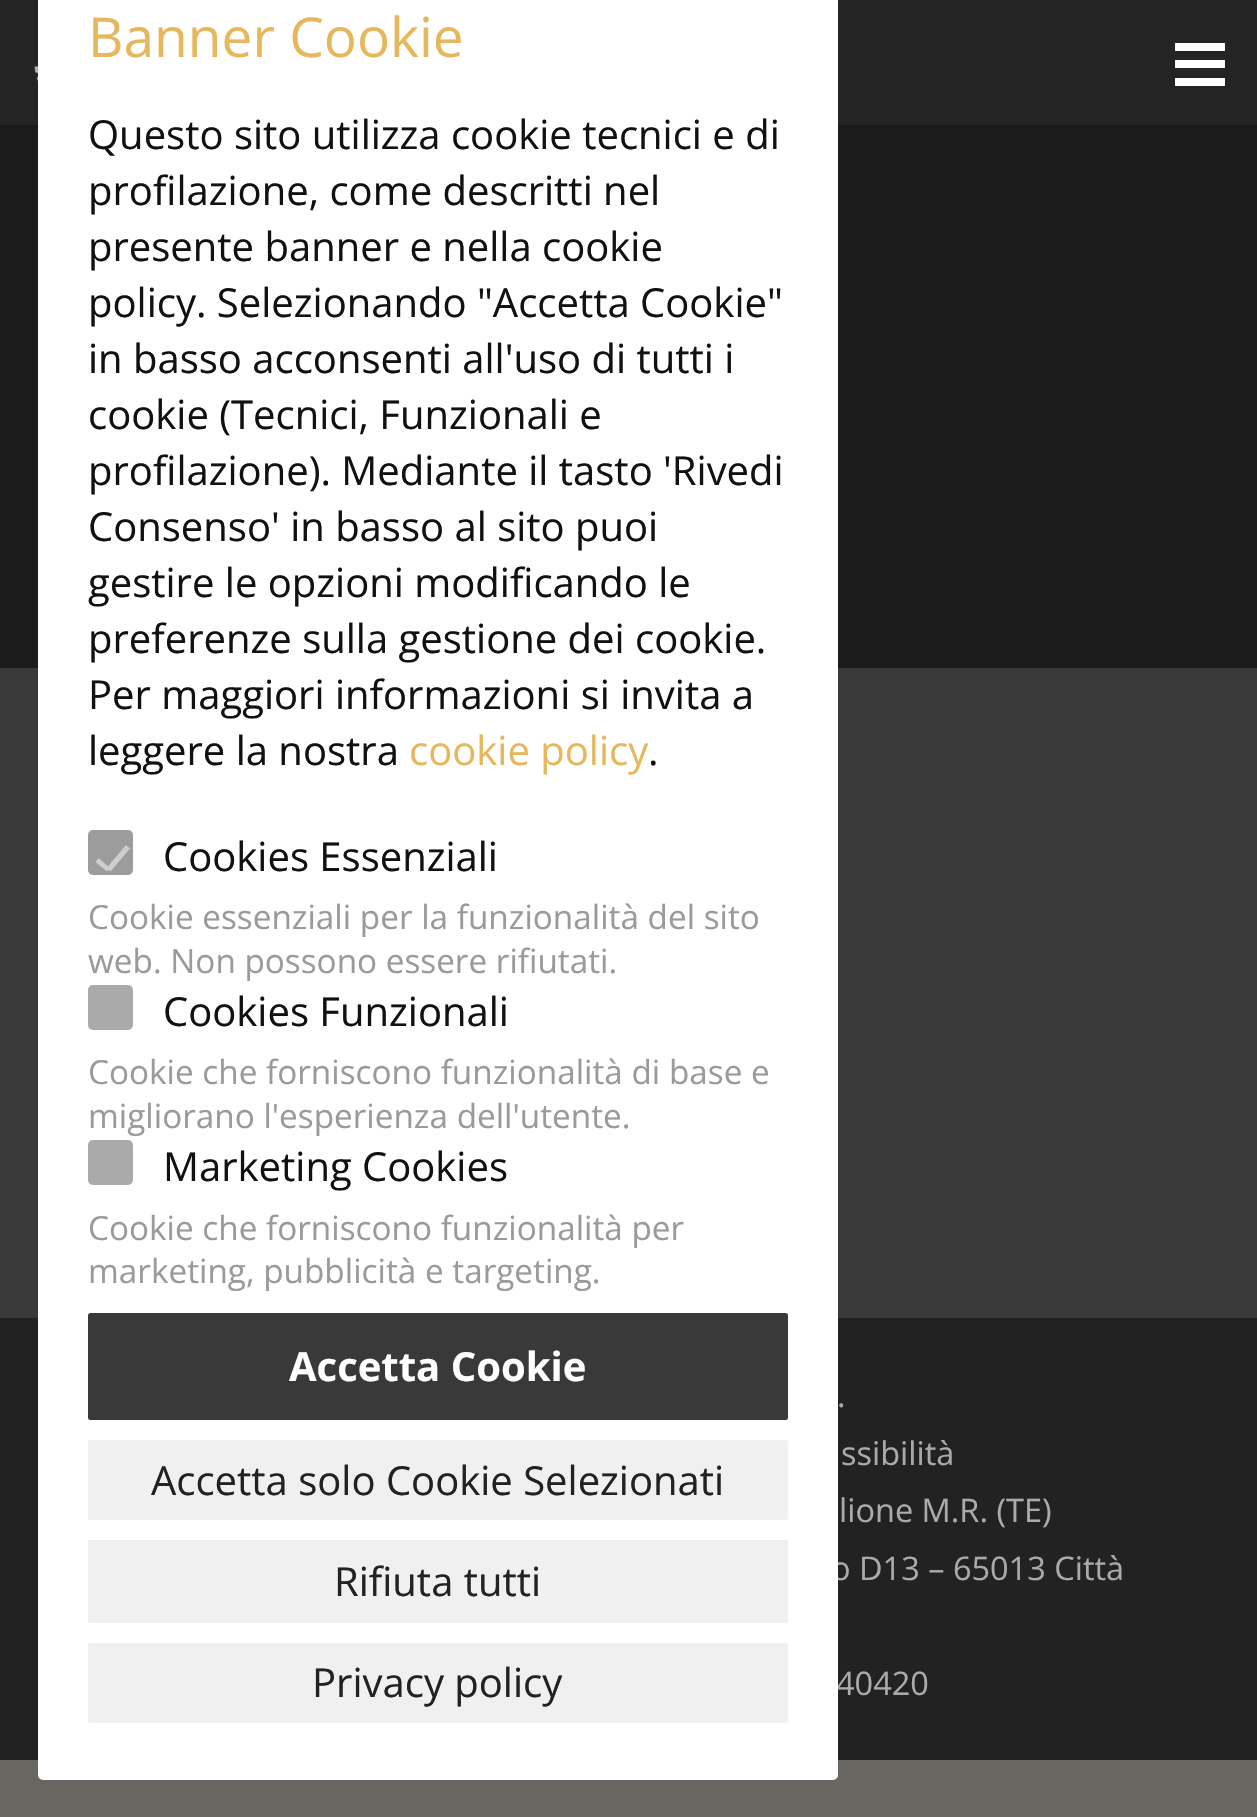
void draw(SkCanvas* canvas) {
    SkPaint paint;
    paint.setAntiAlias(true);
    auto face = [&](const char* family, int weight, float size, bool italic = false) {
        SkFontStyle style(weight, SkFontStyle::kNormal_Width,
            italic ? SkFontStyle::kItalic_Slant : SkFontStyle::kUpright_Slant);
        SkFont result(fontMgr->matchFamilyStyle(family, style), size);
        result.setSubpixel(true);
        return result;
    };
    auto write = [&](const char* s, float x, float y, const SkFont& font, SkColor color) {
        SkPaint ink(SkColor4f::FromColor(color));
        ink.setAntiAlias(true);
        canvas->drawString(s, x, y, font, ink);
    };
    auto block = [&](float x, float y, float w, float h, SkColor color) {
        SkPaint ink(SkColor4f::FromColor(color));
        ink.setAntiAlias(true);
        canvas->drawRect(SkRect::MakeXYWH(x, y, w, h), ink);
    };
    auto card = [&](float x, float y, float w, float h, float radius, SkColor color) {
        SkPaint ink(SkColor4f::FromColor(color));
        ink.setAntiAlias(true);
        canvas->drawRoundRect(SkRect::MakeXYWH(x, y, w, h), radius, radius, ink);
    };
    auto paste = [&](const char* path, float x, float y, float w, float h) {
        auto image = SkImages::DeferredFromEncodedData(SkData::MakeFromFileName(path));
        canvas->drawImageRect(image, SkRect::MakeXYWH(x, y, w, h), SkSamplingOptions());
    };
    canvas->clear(SkColorSetRGB(105, 102, 97));
    block(0, 668, 1257, 650, SkColorSetRGB(57, 57, 57));
    paint.setColor(SkColorSetRGB(26, 26, 26));
    canvas->drawPath(SkPathBuilder().moveTo(0, 125).lineTo(0, 128).lineTo(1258, 128).lineTo(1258, 3).lineTo(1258, 125).close().detach(), paint);
    block(0, 0, 1257, 125, SkColorSetRGB(36, 36, 36));
    paste("pic1.png", 34, 66, 4, 18);
    block(1175, 60, 50, 8, SK_ColorWHITE);
    block(1175, 43, 50, 8, SK_ColorWHITE);
    block(1175, 78, 50, 8, SK_ColorWHITE);
    block(0, 128, 1257, 540, SkColorSetRGB(28, 28, 28));
    block(0, 1318, 1257, 442, SkColorSetRGB(34, 34, 34));
    auto kFont1 = face("Open Sans", 400, 32.5f);
    write("o D13 – 65013 Città", 831, 1580, kFont1, SkColorSetRGB(170, 170, 170));
    write("40420", 836, 1695, kFont1, SkColorSetRGB(170, 170, 170));
    card(38, -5, 800, 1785, 5, SK_ColorWHITE);
    auto kFont2 = face("Open Sans", 400, 55);
    write("Banner Cookie", 88, 57, kFont2, SkColorSetRGB(230, 183, 92));
    auto kFont3 = face("Open Sans", 400, 40);
    write("Questo sito utilizza cookie tecnici e di", 88, 149, kFont3, SkColorSetRGB(17, 17, 17));
    write("profilazione, come descritti nel", 88, 205, kFont3, SkColorSetRGB(17, 17, 17));
    write("presente banner e nella cookie", 88, 261, kFont3, SkColorSetRGB(17, 17, 17));
    write("policy. Selezionando \"Accetta Cookie\"", 88, 317, kFont3, SkColorSetRGB(17, 17, 17));
    write("in basso acconsenti all'uso di tutti i", 88, 373, kFont3, SkColorSetRGB(17, 17, 17));
    write("cookie (Tecnici, Funzionali e", 88, 429, kFont3, SkColorSetRGB(17, 17, 17));
    write("profilazione). Mediante il tasto 'Rivedi", 88, 485, kFont3, SkColorSetRGB(17, 17, 17));
    write("Consenso' in basso al sito puoi", 88, 541, kFont3, SkColorSetRGB(17, 17, 17));
    write("gestire le opzioni modificando le", 88, 597, kFont3, SkColorSetRGB(17, 17, 17));
    write("preferenze sulla gestione dei cookie.", 88, 653, kFont3, SkColorSetRGB(17, 17, 17));
    write("Per maggiori informazioni si invita a", 88, 709, kFont3, SkColorSetRGB(17, 17, 17));
    write("leggere la nostra", 88, 765, kFont3, SkColorSetRGB(17, 17, 17));
    write("cookie policy", 409, 765, kFont3, SkColorSetRGB(230, 183, 92));
    write(".", 648, 765, kFont3, SkColorSetRGB(17, 17, 17));
    card(88, 830, 45, 45, 5, SkColorSetRGB(156, 156, 156));
    write("Cookies Essenziali", 163, 871, kFont3, SkColorSetRGB(17, 17, 17));
    paint.setColor(SkColorSetRGB(206, 206, 206));
    canvas->drawPath(SkPathBuilder().moveTo(106.5f, 868).lineTo(126, 845).lineTo(130, 848.5f).lineTo(110.5f, 871.5f).close().detach(), paint);
    canvas->drawPath(SkPathBuilder().moveTo(95.5f, 862).lineTo(98.5f, 858).lineTo(110, 868).lineTo(107, 871.5f).close().detach(), paint);
    auto kFont4 = face("Open Sans", 400, 33.3f);
    write("Cookie essenziali per la funzionalità del sito", 88, 929, kFont4, SkColorSetRGB(154, 154, 154));
    write("web. Non possono essere rifiutati.", 88, 973, kFont4, SkColorSetRGB(154, 154, 154));
    card(88, 985, 45, 45, 5, SkColorSetRGB(170, 170, 170));
    write("Cookies Funzionali", 163, 1026, kFont3, SkColorSetRGB(17, 17, 17));
    write("Cookie che forniscono funzionalità di base e", 88, 1084, kFont4, SkColorSetRGB(154, 154, 154));
    write("migliorano l'esperienza dell'utente.", 88, 1128, kFont4, SkColorSetRGB(154, 154, 154));
    card(88, 1140, 45, 45, 5, SkColorSetRGB(170, 170, 170));
    write("Marketing Cookies", 163, 1181, kFont3, SkColorSetRGB(17, 17, 17));
    write("Cookie che forniscono funzionalità per", 88, 1240, kFont4, SkColorSetRGB(154, 154, 154));
    write("marketing, pubblicità e targeting.", 88, 1283, kFont4, SkColorSetRGB(154, 154, 154));
    card(88, 1313, 700, 107, 2.5f, SkColorSetRGB(57, 57, 57));
    auto kFont5 = face("Open Sans", 700, 40);
    write("Accetta Cookie", 289, 1381, kFont5, SK_ColorWHITE);
    card(88, 1440, 700, 80, 2.5f, SkColorSetRGB(240, 240, 240));
    write("Accetta solo Cookie Selezionati", 151, 1495, kFont3, SkColorSetRGB(34, 34, 34));
    card(88, 1540, 700, 83, 2.5f, SkColorSetRGB(240, 240, 240));
    write("Rifiuta tutti", 334, 1596, kFont3, SkColorSetRGB(34, 34, 34));
    card(88, 1643, 700, 80, 2.5f, SkColorSetRGB(240, 240, 240));
    write("Privacy policy", 312, 1697, kFont3, SkColorSetRGB(34, 34, 34));
    write(".", 837, 1407, kFont1, SkColorSetRGB(170, 170, 170));
    write("ssibilità", 841, 1465, kFont1, SkColorSetRGB(170, 170, 170));
    write("lione M.R. (TE)", 839, 1522, kFont1, SkColorSetRGB(170, 170, 170));
}
